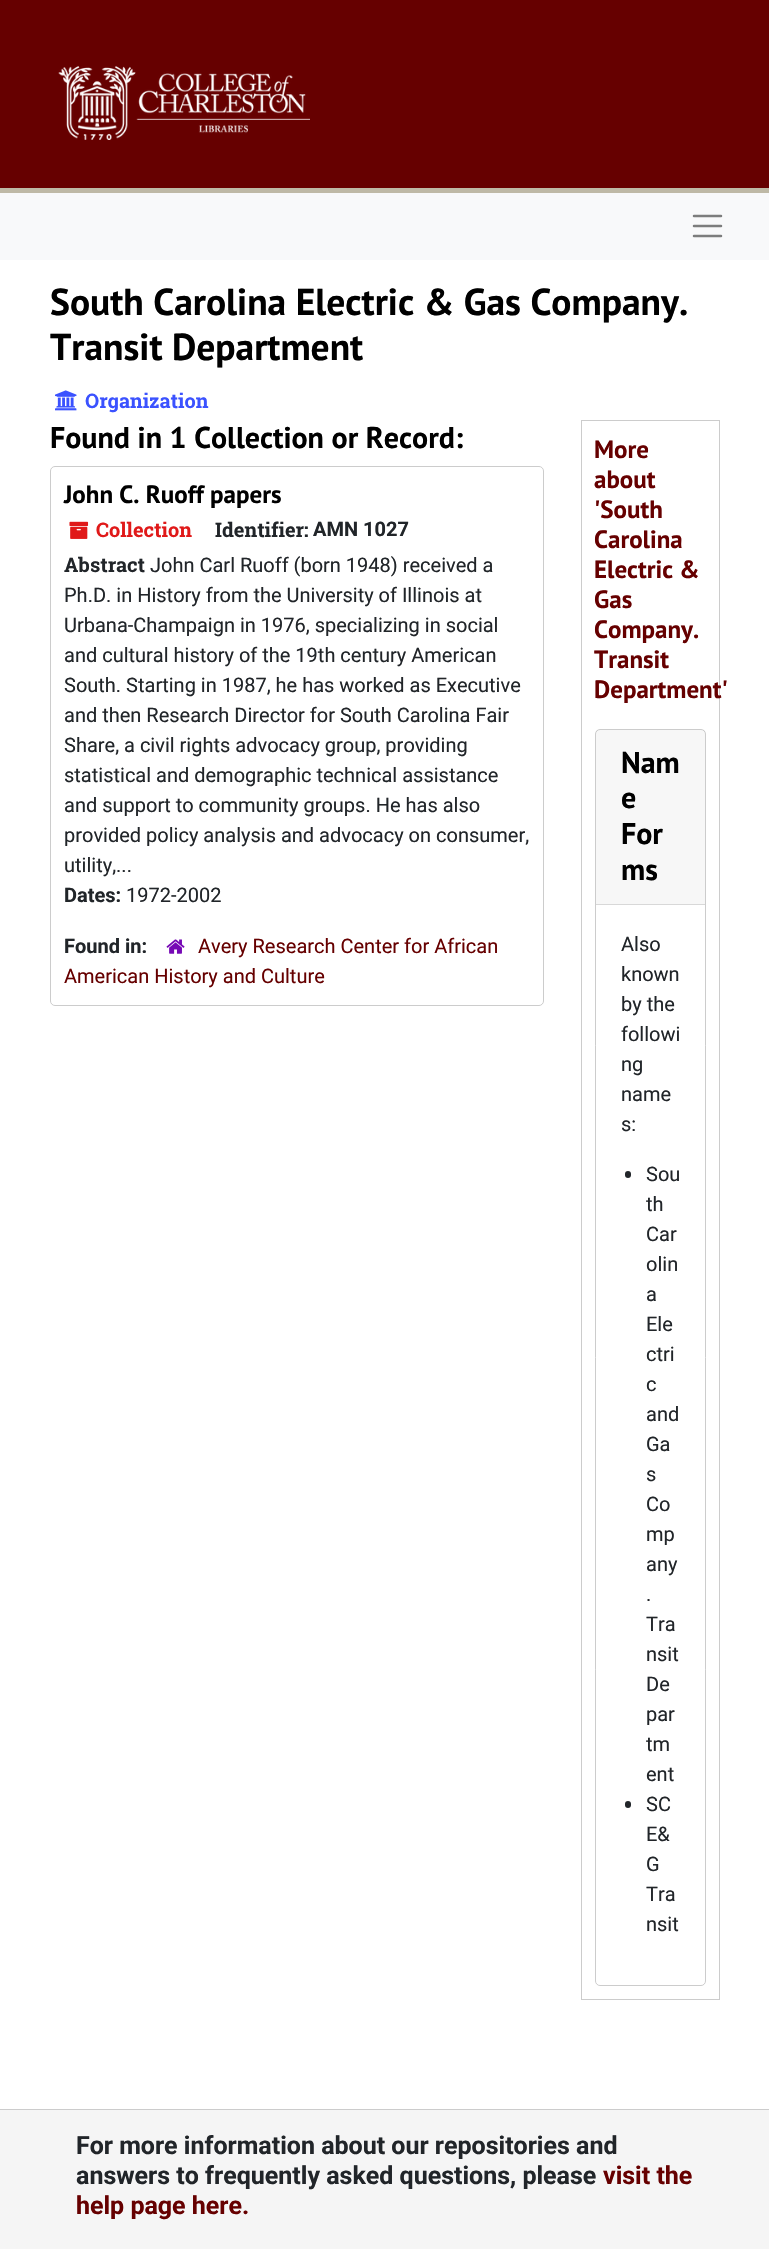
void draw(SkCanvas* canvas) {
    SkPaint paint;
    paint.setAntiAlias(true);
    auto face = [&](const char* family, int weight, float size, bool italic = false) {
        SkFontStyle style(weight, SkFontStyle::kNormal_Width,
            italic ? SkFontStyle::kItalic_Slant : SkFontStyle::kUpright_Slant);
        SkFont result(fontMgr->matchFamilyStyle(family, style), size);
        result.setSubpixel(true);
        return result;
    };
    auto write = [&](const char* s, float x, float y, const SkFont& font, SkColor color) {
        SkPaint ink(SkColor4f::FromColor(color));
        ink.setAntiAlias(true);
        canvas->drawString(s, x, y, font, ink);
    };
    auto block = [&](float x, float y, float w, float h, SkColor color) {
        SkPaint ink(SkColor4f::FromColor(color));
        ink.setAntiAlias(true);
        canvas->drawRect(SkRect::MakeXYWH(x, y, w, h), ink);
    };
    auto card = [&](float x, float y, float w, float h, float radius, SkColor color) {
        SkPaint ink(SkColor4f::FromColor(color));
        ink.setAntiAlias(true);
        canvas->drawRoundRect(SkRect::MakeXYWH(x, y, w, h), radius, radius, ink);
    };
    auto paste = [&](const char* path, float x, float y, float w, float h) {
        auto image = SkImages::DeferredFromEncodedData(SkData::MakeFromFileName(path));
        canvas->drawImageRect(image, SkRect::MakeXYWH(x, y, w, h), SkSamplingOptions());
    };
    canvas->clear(SK_ColorWHITE);
    block(0, 0, 769, 188, SkColorSetRGB(102, 0, 0));
    block(0, 188, 769, 5, SkColorSetRGB(190, 185, 166));
    paste("pic1.png", 58, 66, 252, 74);
    block(0, 193, 769, 67, SkColorSetRGB(248, 249, 250));
    paint.setStyle(SkPaint::kStroke_Style);
    paint.setStrokeWidth(2.5f);
    paint.setStrokeCap(SkPaint::kRound_Cap);
    paint.setColor(SkColorSetRGB(124, 125, 125));
    canvas->drawPath(SkPathBuilder().moveTo(694, 216).lineTo(721, 216).moveTo(694, 226).lineTo(721, 226).moveTo(694, 236).lineTo(721, 236).detach(), paint);
    auto kFont1 = face("PT Sans", 700, 37.5f);
    write("South Carolina Electric & Gas Company.", 50, 315, kFont1, SK_ColorBLACK);
    write("Transit Department", 50, 360, kFont1, SK_ColorBLACK);
    paste("pic2.png", 55, 390, 22, 21);
    auto kFont2 = face("Roboto Slab", 700, 20);
    write("Organization", 85, 408, kFont2, SkColorSetRGB(59, 82, 255));
    auto kFont3 = face("PT Sans", 700, 30);
    write("Found in 1 Collection or Record:", 50, 448, kFont3, SK_ColorBLACK);
    paint.setStrokeWidth(1);
    paint.setStrokeCap(SkPaint::kButt_Cap);
    paint.setColor(SkColorSetRGB(204, 204, 204));
    canvas->drawRoundRect(SkRect::MakeXYWH(50.5f, 466.5f, 493, 539), 4.5f, 4.5f, paint);
    auto kFont4 = face("PT Sans", 700, 25);
    write("John C. Ruoff papers", 64, 503, kFont4, SK_ColorBLACK);
    paste("pic3.png", 69, 521, 20, 18);
    write("Collection", 96, 537, kFont2, SkColorSetRGB(224, 25, 25));
    write("Identifier:", 215, 537, kFont2, SkColorSetRGB(33, 37, 41));
    auto kFont5 = face("Roboto", 700, 20);
    write("AMN 1027", 313, 536, kFont5, SkColorSetRGB(33, 37, 41));
    write("Abstract", 64, 572, kFont2, SkColorSetRGB(33, 37, 41));
    auto kFont6 = face("Roboto", 400, 20);
    write("John Carl Ruoff (born 1948) received a", 150, 572, kFont6, SkColorSetRGB(33, 37, 41));
    write("Ph.D. in History from the University of Illinois at", 64, 602, kFont6, SkColorSetRGB(33, 37, 41));
    write("Urbana-Champaign in 1976, specializing in social", 64, 632, kFont6, SkColorSetRGB(33, 37, 41));
    write("and cultural history of the 19th century American", 64, 662, kFont6, SkColorSetRGB(33, 37, 41));
    write("South. Starting in 1987, he has worked as Executive", 64, 692, kFont6, SkColorSetRGB(33, 37, 41));
    write("and then Research Director for South Carolina Fair", 64, 722, kFont6, SkColorSetRGB(33, 37, 41));
    write("Share, a civil rights advocacy group, providing", 64, 752, kFont6, SkColorSetRGB(33, 37, 41));
    write("statistical and demographic technical assistance", 64, 782, kFont6, SkColorSetRGB(33, 37, 41));
    write("and support to community groups. He has also", 64, 812, kFont6, SkColorSetRGB(33, 37, 41));
    write("provided policy analysis and advocacy on consumer,", 64, 842, kFont6, SkColorSetRGB(33, 37, 41));
    write("utility,...", 64, 872, kFont6, SkColorSetRGB(33, 37, 41));
    write("Dates:", 64, 902, kFont5, SkColorSetRGB(33, 37, 41));
    write("1972-2002", 126, 902, kFont6, SkColorSetRGB(33, 37, 41));
    paste("pic4.png", 166, 939, 19, 15);
    write("Avery Research Center for African", 198, 953, kFont6, SkColorSetRGB(102, 0, 0));
    write("American History and Culture", 64, 983, kFont6, SkColorSetRGB(102, 0, 0));
    write("Found in:", 64, 953, kFont5, SkColorSetRGB(33, 37, 41));
    canvas->drawRect(SkRect::MakeXYWH(581.5f, 420.5f, 138, 1579), paint);
    write("More", 594, 458, kFont4, SkColorSetRGB(102, 0, 0));
    write("about", 594, 488, kFont4, SkColorSetRGB(102, 0, 0));
    write("'South", 594, 518, kFont4, SkColorSetRGB(102, 0, 0));
    write("Carolina", 594, 548, kFont4, SkColorSetRGB(102, 0, 0));
    write("Electric &", 594, 578, kFont4, SkColorSetRGB(102, 0, 0));
    write("Gas", 594, 608, kFont4, SkColorSetRGB(102, 0, 0));
    write("Company.", 594, 638, kFont4, SkColorSetRGB(102, 0, 0));
    write("Transit", 594, 668, kFont4, SkColorSetRGB(102, 0, 0));
    write("Department'", 594, 698, kFont4, SkColorSetRGB(102, 0, 0));
    canvas->drawRoundRect(SkRect::MakeXYWH(595.5f, 729.5f, 110, 1256), 4.5f, 4.5f, paint);
    block(596, 730, 109, 174, SkColorSetARGB(8, 0, 0, 0));
    block(596, 904, 109, 1, SkColorSetRGB(216, 216, 216));
    write("Nam", 621, 773, kFont3, SK_ColorBLACK);
    write("e", 621, 808, kFont3, SK_ColorBLACK);
    write("For", 621, 844, kFont3, SK_ColorBLACK);
    write("ms", 621, 880, kFont3, SK_ColorBLACK);
    write("Also", 621, 951, kFont6, SkColorSetRGB(33, 37, 41));
    write("known", 621, 981, kFont6, SkColorSetRGB(33, 37, 41));
    write("by the", 621, 1011, kFont6, SkColorSetRGB(33, 37, 41));
    write("followi", 621, 1041, kFont6, SkColorSetRGB(33, 37, 41));
    write("ng", 621, 1071, kFont6, SkColorSetRGB(33, 37, 41));
    write("name", 621, 1101, kFont6, SkColorSetRGB(33, 37, 41));
    write("s:", 621, 1131, kFont6, SkColorSetRGB(33, 37, 41));
    card(625, 1171, 6, 7, 3, SkColorSetRGB(33, 37, 41));
    write("Sou", 646, 1181, kFont6, SkColorSetRGB(33, 37, 41));
    write("th", 646, 1211, kFont6, SkColorSetRGB(33, 37, 41));
    write("Car", 646, 1241, kFont6, SkColorSetRGB(33, 37, 41));
    write("olin", 646, 1271, kFont6, SkColorSetRGB(33, 37, 41));
    write("a", 646, 1301, kFont6, SkColorSetRGB(33, 37, 41));
    write("Ele", 646, 1331, kFont6, SkColorSetRGB(33, 37, 41));
    write("ctri", 646, 1361, kFont6, SkColorSetRGB(33, 37, 41));
    write("c", 646, 1391, kFont6, SkColorSetRGB(33, 37, 41));
    write("and", 646, 1421, kFont6, SkColorSetRGB(33, 37, 41));
    write("Ga", 646, 1451, kFont6, SkColorSetRGB(33, 37, 41));
    write("s", 646, 1481, kFont6, SkColorSetRGB(33, 37, 41));
    write("Co", 646, 1511, kFont6, SkColorSetRGB(33, 37, 41));
    write("mp", 646, 1541, kFont6, SkColorSetRGB(33, 37, 41));
    write("any", 646, 1571, kFont6, SkColorSetRGB(33, 37, 41));
    write(".", 646, 1601, kFont6, SkColorSetRGB(33, 37, 41));
    write("Tra", 646, 1631, kFont6, SkColorSetRGB(33, 37, 41));
    write("nsit", 646, 1661, kFont6, SkColorSetRGB(33, 37, 41));
    write("De", 646, 1691, kFont6, SkColorSetRGB(33, 37, 41));
    write("par", 646, 1721, kFont6, SkColorSetRGB(33, 37, 41));
    write("tm", 646, 1751, kFont6, SkColorSetRGB(33, 37, 41));
    write("ent", 646, 1781, kFont6, SkColorSetRGB(33, 37, 41));
    card(625, 1801, 6, 7, 3, SkColorSetRGB(33, 37, 41));
    write("SC", 646, 1811, kFont6, SkColorSetRGB(33, 37, 41));
    write("E&", 646, 1841, kFont6, SkColorSetRGB(33, 37, 41));
    write("G", 646, 1871, kFont6, SkColorSetRGB(33, 37, 41));
    write("Tra", 646, 1901, kFont6, SkColorSetRGB(33, 37, 41));
    write("nsit", 646, 1931, kFont6, SkColorSetRGB(33, 37, 41));
    block(0, 2110, 769, 139, SkColorSetRGB(245, 245, 245));
    block(0, 2109, 769, 1, SkColorSetRGB(204, 204, 204));
    auto kFont7 = face("Roboto", 700, 25);
    write("For more information about our repositories and", 76, 2154, kFont7, SkColorSetRGB(33, 37, 41));
    write("answers to frequently asked questions, please", 76, 2184, kFont7, SkColorSetRGB(33, 37, 41));
    write("visit the", 603, 2184, kFont7, SkColorSetRGB(102, 0, 0));
    write("help page here.", 76, 2214, kFont7, SkColorSetRGB(102, 0, 0));
}
